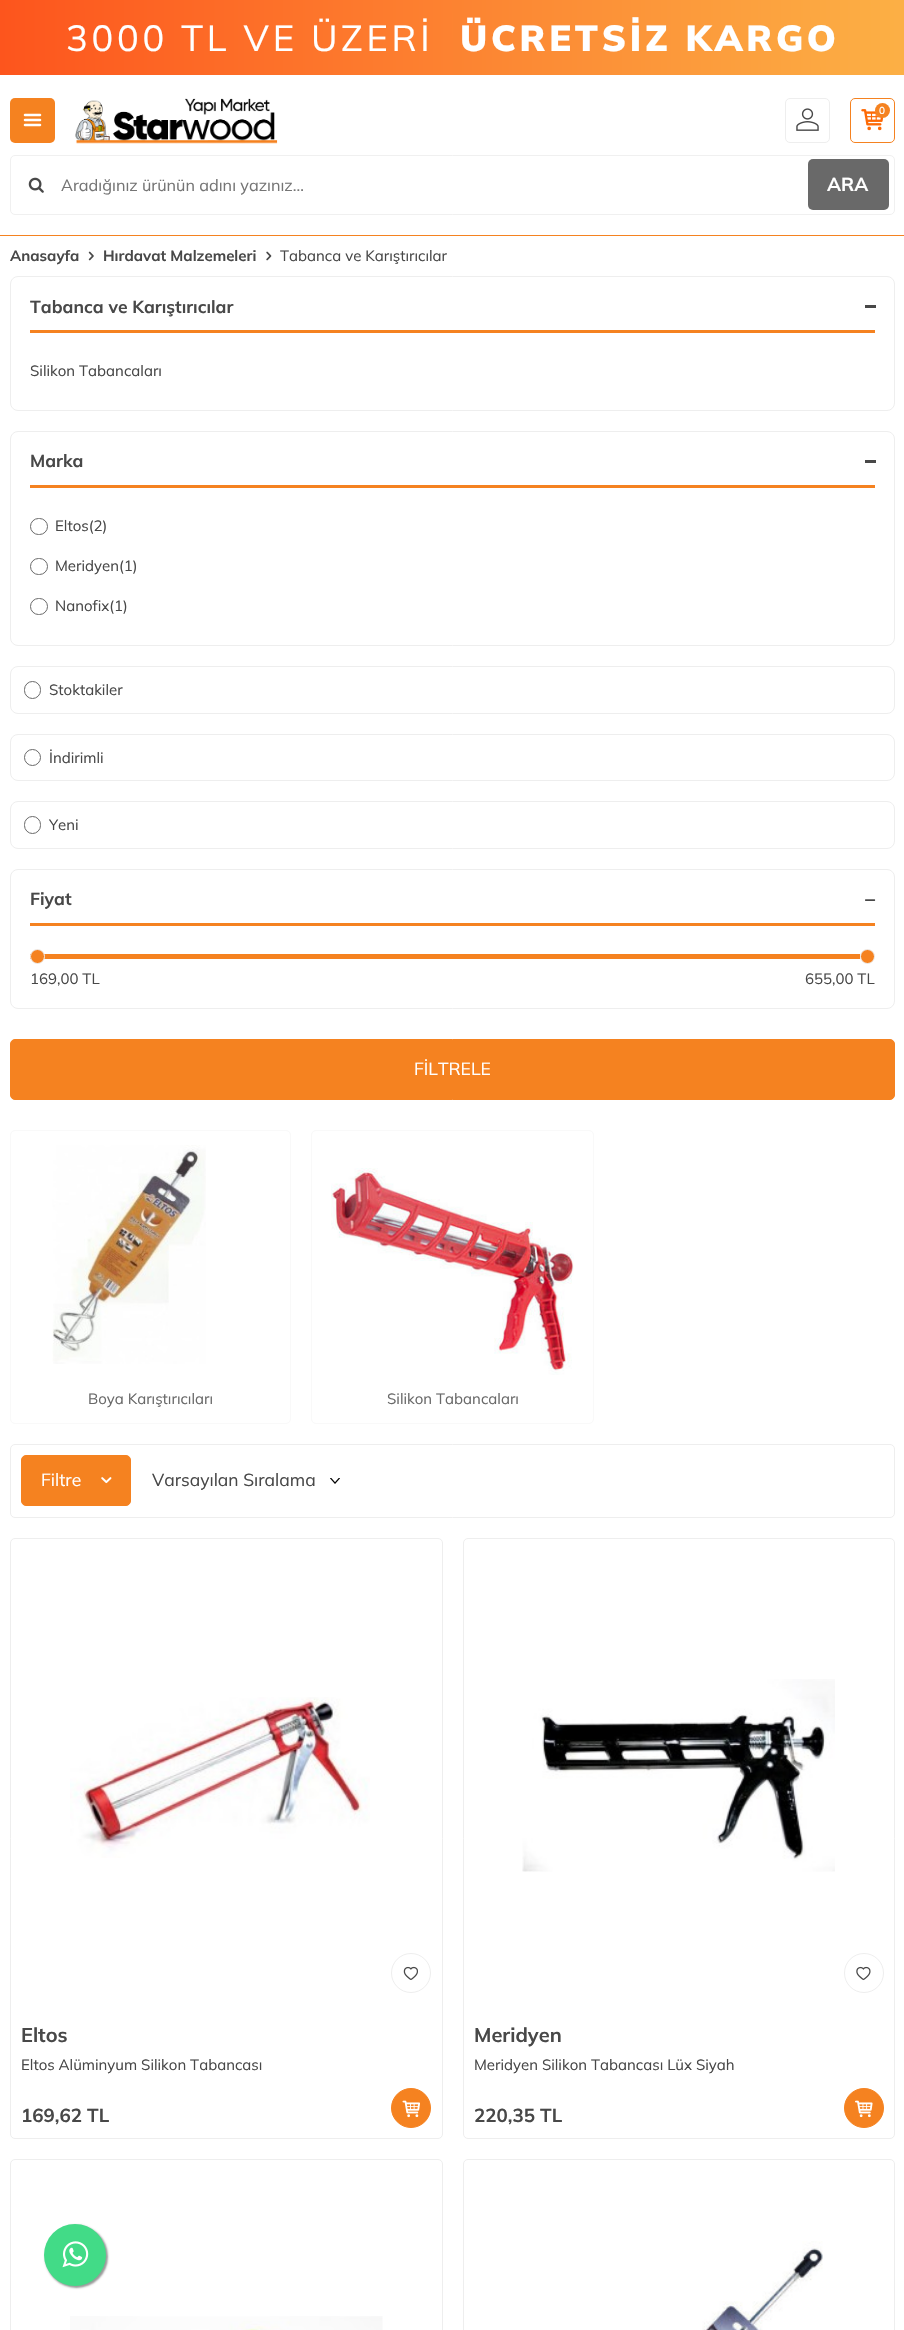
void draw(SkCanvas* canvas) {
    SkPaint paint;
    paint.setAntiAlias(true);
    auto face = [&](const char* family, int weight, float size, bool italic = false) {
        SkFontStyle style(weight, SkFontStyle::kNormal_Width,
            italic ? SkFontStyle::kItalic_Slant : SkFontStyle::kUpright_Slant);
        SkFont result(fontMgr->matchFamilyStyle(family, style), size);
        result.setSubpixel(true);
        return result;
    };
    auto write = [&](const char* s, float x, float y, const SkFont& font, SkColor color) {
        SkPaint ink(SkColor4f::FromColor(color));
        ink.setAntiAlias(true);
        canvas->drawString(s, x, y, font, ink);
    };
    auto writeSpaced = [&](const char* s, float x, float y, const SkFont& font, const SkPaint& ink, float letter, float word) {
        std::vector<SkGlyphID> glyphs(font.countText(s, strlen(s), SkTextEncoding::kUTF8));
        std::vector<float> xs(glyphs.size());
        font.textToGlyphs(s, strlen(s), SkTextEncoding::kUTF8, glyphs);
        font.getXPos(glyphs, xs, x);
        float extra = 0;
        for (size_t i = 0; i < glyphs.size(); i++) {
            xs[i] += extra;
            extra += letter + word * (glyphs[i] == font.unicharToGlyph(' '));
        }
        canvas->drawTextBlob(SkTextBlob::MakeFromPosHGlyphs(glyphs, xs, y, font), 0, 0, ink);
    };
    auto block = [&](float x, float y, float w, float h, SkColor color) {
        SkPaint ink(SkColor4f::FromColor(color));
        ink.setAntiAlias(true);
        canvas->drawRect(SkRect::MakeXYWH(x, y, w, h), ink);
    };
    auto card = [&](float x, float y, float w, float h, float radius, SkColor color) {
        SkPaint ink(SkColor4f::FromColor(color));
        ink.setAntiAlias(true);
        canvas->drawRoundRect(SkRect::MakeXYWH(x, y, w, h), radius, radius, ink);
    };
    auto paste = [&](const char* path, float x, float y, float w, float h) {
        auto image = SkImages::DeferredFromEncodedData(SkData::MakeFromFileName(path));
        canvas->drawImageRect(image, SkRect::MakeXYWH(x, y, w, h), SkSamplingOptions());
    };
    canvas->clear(SK_ColorWHITE);
    {
        const SkColor colors[] = {SkColorSetRGB(253, 85, 29), SkColorSetRGB(252, 176, 69)};
        const float stops[] = {0, 1};
        const SkPoint ends[] = {{0, 38}, {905, 37}};
        paint.setShader(SkGradientShader::MakeLinear(ends, colors, stops, 2, SkTileMode::kClamp));
        paint.setAlpha(255);
    }
    canvas->drawRect(SkRect::MakeXYWH(0, 0, 904, 75), paint);
    auto kFont1 = face("Mulish", 400, 36.25f);
    paint.setShader(nullptr);
    paint.setColor(SK_ColorWHITE);
    writeSpaced("3000 TL VE ÜZERİ", 66, 51, kFont1, paint, 3.75f, 0);
    auto kFont2 = face("Mulish", 900, 36.25f);
    writeSpaced("ÜCRETSİZ KARGO", 460, 51, kFont2, paint, 3.75f, 0);
    block(0, 235, 904, 1, SkColorSetRGB(245, 130, 32));
    card(10, 98, 45, 45, 5, SkColorSetRGB(245, 130, 32));
    paste("pic1.png", 23, 113, 19, 14);
    paste("pic2.png", 75, 98, 203, 46);
    paint.setStyle(SkPaint::kStroke_Style);
    paint.setStrokeWidth(1);
    paint.setColor(SkColorSetRGB(238, 238, 238));
    canvas->drawRoundRect(SkRect::MakeXYWH(785.5f, 98.5f, 44, 44), 4.5f, 4.5f, paint);
    paste("pic3.png", 796, 108, 23, 23);
    paint.setColor(SkColorSetRGB(245, 130, 32));
    canvas->drawRoundRect(SkRect::MakeXYWH(850.5f, 98.5f, 44, 44), 4.5f, 4.5f, paint);
    paste("pic4.png", 861, 109, 23, 22);
    paint.setStyle(SkPaint::kFill_Style);
    canvas->drawCircle(882.5f, 110.5f, 7.5f, paint);
    auto kFont3 = face("Mulish", 500, 10);
    write("0", 879, 114, kFont3, SK_ColorWHITE);
    paint.setStyle(SkPaint::kStroke_Style);
    paint.setColor(SkColorSetRGB(240, 240, 240));
    canvas->drawRoundRect(SkRect::MakeXYWH(10.5f, 155.5f, 884, 59), 4.5f, 4.5f, paint);
    paste("pic5.png", 28, 177, 16, 16);
    auto kFont4 = face("Mulish", 400, 16.25f);
    write("Aradığınız ürünün adını yazınız...", 61, 191, kFont4, SkColorSetRGB(117, 117, 117));
    card(808, 159, 81, 51, 5, SkColorSetRGB(105, 105, 105));
    auto kFont5 = face("Mulish", 700, 18.75f);
    write("ARA", 827, 191, kFont5, SK_ColorWHITE);
    auto kFont6 = face("Mulish", 700, 15);
    write("Anasayfa", 10, 261, kFont6, SkColorSetRGB(72, 72, 72));
    paste("pic6.png", 88, 251, 6, 10);
    write("Hırdavat Malzemeleri", 103, 261, kFont6, SkColorSetRGB(72, 72, 72));
    paste("pic7.png", 266, 251, 6, 10);
    auto kFont7 = face("Mulish", 400, 15);
    write("Tabanca ve Karıştırıcılar", 280, 261, kFont7, SkColorSetRGB(72, 72, 72));
    paint.setColor(SkColorSetRGB(238, 238, 238));
    canvas->drawRoundRect(SkRect::MakeXYWH(10.5f, 276.5f, 884, 134), 7.5f, 7.5f, paint);
    block(30, 330, 845, 3, SkColorSetRGB(245, 130, 32));
    auto kFont8 = face("Mulish", 700, 17.5f);
    write("Tabanca ve Karıştırıcılar", 30, 313, kFont8, SkColorSetRGB(72, 72, 72));
    block(865, 305, 11, 3, SkColorSetRGB(72, 72, 72));
    write("Silikon Tabancaları", 30, 376, kFont7, SkColorSetRGB(72, 72, 72));
    canvas->drawRoundRect(SkRect::MakeXYWH(10.5f, 431.5f, 884, 214), 7.5f, 7.5f, paint);
    block(30, 485, 845, 3, SkColorSetRGB(245, 130, 32));
    write("Marka", 30, 467, kFont8, SkColorSetRGB(72, 72, 72));
    block(865, 460, 11, 3, SkColorSetRGB(72, 72, 72));
    paint.setColor(SkColorSetRGB(105, 105, 105));
    canvas->drawRoundRect(SkRect::MakeXYWH(30.5f, 518.5f, 17, 16), 8, 8, paint);
    write("Eltos(2)", 55, 531, kFont7, SkColorSetRGB(72, 72, 72));
    canvas->drawRoundRect(SkRect::MakeXYWH(30.5f, 558.5f, 17, 16), 8, 8, paint);
    write("Meridyen(1)", 55, 571, kFont7, SkColorSetRGB(72, 72, 72));
    canvas->drawRoundRect(SkRect::MakeXYWH(30.5f, 598.5f, 17, 16), 8, 8, paint);
    write("Nanofix(1)", 55, 611, kFont7, SkColorSetRGB(72, 72, 72));
    paint.setColor(SkColorSetRGB(238, 238, 238));
    canvas->drawRoundRect(SkRect::MakeXYWH(10.5f, 666.5f, 884, 47), 7.5f, 7.5f, paint);
    paint.setColor(SkColorSetRGB(105, 105, 105));
    canvas->drawRoundRect(SkRect::MakeXYWH(24.5f, 681.5f, 16, 17), 8, 8, paint);
    write("Stoktakiler", 49, 695, kFont7, SkColorSetRGB(72, 72, 72));
    paint.setColor(SkColorSetRGB(238, 238, 238));
    canvas->drawRoundRect(SkRect::MakeXYWH(10.5f, 734.5f, 884, 46), 7.5f, 7.5f, paint);
    paint.setColor(SkColorSetRGB(105, 105, 105));
    canvas->drawCircle(32.5f, 757.5f, 8, paint);
    write("İndirimli", 49, 763, kFont7, SkColorSetRGB(72, 72, 72));
    paint.setColor(SkColorSetRGB(238, 238, 238));
    canvas->drawRoundRect(SkRect::MakeXYWH(10.5f, 801.5f, 884, 47), 7.5f, 7.5f, paint);
    paint.setColor(SkColorSetRGB(105, 105, 105));
    canvas->drawRoundRect(SkRect::MakeXYWH(24.5f, 816.5f, 16, 17), 8, 8, paint);
    write("Yeni", 49, 830, kFont7, SkColorSetRGB(72, 72, 72));
    paint.setColor(SkColorSetRGB(238, 238, 238));
    canvas->drawRoundRect(SkRect::MakeXYWH(10.5f, 869.5f, 884, 139), 7.5f, 7.5f, paint);
    block(30, 923, 845, 3, SkColorSetRGB(245, 130, 32));
    write("Fiyat", 30, 905, kFont8, SkColorSetRGB(72, 72, 72));
    paste("pic8.png", 865, 899, 11, 2);
    block(30, 954, 830, 5, SkColorSetRGB(245, 130, 32));
    paint.setStyle(SkPaint::kFill_Style);
    paint.setColor(SkColorSetRGB(245, 130, 32));
    canvas->drawCircle(37.5f, 956.5f, 7, paint);
    paint.setStyle(SkPaint::kStroke_Style);
    paint.setColor(SkColorSetRGB(238, 238, 238));
    canvas->drawCircle(37.5f, 956.5f, 7, paint);
    paint.setStyle(SkPaint::kFill_Style);
    paint.setColor(SkColorSetRGB(245, 130, 32));
    canvas->drawCircle(867.5f, 956.5f, 7, paint);
    paint.setStyle(SkPaint::kStroke_Style);
    paint.setColor(SkColorSetRGB(238, 238, 238));
    canvas->drawCircle(867.5f, 956.5f, 7, paint);
    write("169,00 TL", 30, 984, kFont7, SkColorSetRGB(72, 72, 72));
    write("655,00 TL", 805, 984, kFont7, SkColorSetRGB(72, 72, 72));
    paint.setStyle(SkPaint::kFill_Style);
    paint.setColor(SkColorSetRGB(245, 130, 32));
    canvas->drawRoundRect(SkRect::MakeXYWH(10.5f, 1039.5f, 884, 60), 4.5f, 4.5f, paint);
    paint.setStyle(SkPaint::kStroke_Style);
    canvas->drawRoundRect(SkRect::MakeXYWH(10.5f, 1039.5f, 884, 60), 4.5f, 4.5f, paint);
    auto kFont9 = face("Mulish", 400, 17.5f);
    write("FİLTRELE", 414, 1075, kFont9, SK_ColorWHITE);
    paint.setColor(SkColorSetRGB(249, 249, 249));
    canvas->drawRoundRect(SkRect::MakeXYWH(10.5f, 1130.5f, 280, 293), 4.5f, 4.5f, paint);
    paste("pic9.png", 52, 1145, 154, 219);
    write("Boya Karıştırıcıları", 88, 1404, kFont7, SkColorSetRGB(105, 105, 105));
    canvas->drawRoundRect(SkRect::MakeXYWH(311.5f, 1130.5f, 282, 293), 4.5f, 4.5f, paint);
    paste("pic10.png", 331, 1168, 243, 207);
    write("Silikon Tabancaları", 387, 1404, kFont7, SkColorSetRGB(105, 105, 105));
    paint.setColor(SkColorSetRGB(238, 238, 238));
    canvas->drawRoundRect(SkRect::MakeXYWH(10.5f, 1444.5f, 884, 73), 4.5f, 4.5f, paint);
    paint.setStyle(SkPaint::kFill_Style);
    paint.setColor(SkColorSetRGB(245, 130, 32));
    canvas->drawRoundRect(SkRect::MakeXYWH(21.5f, 1455.5f, 109, 50), 4.5f, 4.5f, paint);
    paint.setStyle(SkPaint::kStroke_Style);
    canvas->drawRoundRect(SkRect::MakeXYWH(21.5f, 1455.5f, 109, 50), 4.5f, 4.5f, paint);
    write("Filtre", 41, 1486, kFont9, SK_ColorWHITE);
    paste("pic11.png", 101, 1477, 11, 7);
    paste("pic12.png", 330, 1478, 10, 6);
    write("Varsayılan Sıralama", 152, 1486, kFont9, SkColorSetRGB(72, 72, 72));
    paint.setColor(SkColorSetRGB(238, 238, 238));
    canvas->drawRoundRect(SkRect::MakeXYWH(10.5f, 1538.5f, 432, 600), 4.5f, 4.5f, paint);
    paste("pic13.png", 70, 1697, 300, 161);
    canvas->drawCircle(411, 1973, 19.5f, paint);
    paste("pic14.png", 403, 1966, 15, 14);
    auto kFont10 = face("Mulish", 700, 20);
    write("Eltos", 21, 2042, kFont10, SkColorSetRGB(72, 72, 72));
    write("Eltos Alüminyum Silikon Tabancası", 21, 2070, kFont7, SkColorSetRGB(72, 72, 72));
    write("169,62 TL", 21, 2122, kFont5, SkColorSetRGB(72, 72, 72));
    paint.setStyle(SkPaint::kFill_Style);
    paint.setColor(SkColorSetRGB(245, 130, 32));
    canvas->drawCircle(411, 2108, 19.5f, paint);
    paint.setStyle(SkPaint::kStroke_Style);
    canvas->drawCircle(411, 2108, 19.5f, paint);
    paste("pic15.png", 402, 2100, 18, 18);
    paint.setColor(SkColorSetRGB(238, 238, 238));
    canvas->drawRoundRect(SkRect::MakeXYWH(463.5f, 1538.5f, 431, 600), 4.5f, 4.5f, paint);
    paste("pic16.png", 522, 1679, 313, 193);
    canvas->drawCircle(864, 1973, 19.5f, paint);
    paste("pic17.png", 856, 1966, 15, 15);
    write("Meridyen", 474, 2042, kFont10, SkColorSetRGB(72, 72, 72));
    write("Meridyen Silikon Tabancası Lüx Siyah", 474, 2070, kFont7, SkColorSetRGB(72, 72, 72));
    write("220,35 TL", 474, 2122, kFont5, SkColorSetRGB(72, 72, 72));
    paint.setStyle(SkPaint::kFill_Style);
    paint.setColor(SkColorSetRGB(245, 130, 32));
    canvas->drawCircle(864, 2108, 19.5f, paint);
    paint.setStyle(SkPaint::kStroke_Style);
    canvas->drawCircle(864, 2108, 19.5f, paint);
    paste("pic18.png", 855, 2100, 18, 18);
    paint.setColor(SkColorSetRGB(238, 238, 238));
    canvas->drawRoundRect(SkRect::MakeXYWH(10.5f, 2159.5f, 432, 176), 4.5f, 4.5f, paint);
    paste("pic19.png", 70, 2316, 313, 14);
    canvas->drawRoundRect(SkRect::MakeXYWH(463.5f, 2159.5f, 431, 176), 4.5f, 4.5f, paint);
    paste("pic20.png", 702, 2241, 121, 89);
    paint.setStyle(SkPaint::kFill_Style);
    paint.setColor(SkColorSetRGB(153, 153, 153));
    paint.setMaskFilter(SkMaskFilter::MakeBlur(kNormal_SkBlurStyle, 1));
    canvas->drawRoundRect(SkRect::MakeXYWH(45, 2225, 63, 63), 31.5f, 31.5f, paint);
    paint.setMaskFilter(nullptr);
    paint.setColor(SkColorSetRGB(66, 219, 135));
    canvas->drawCircle(75, 2255, 31, paint);
    paste("pic21.png", 62, 2241, 27, 27);
}
